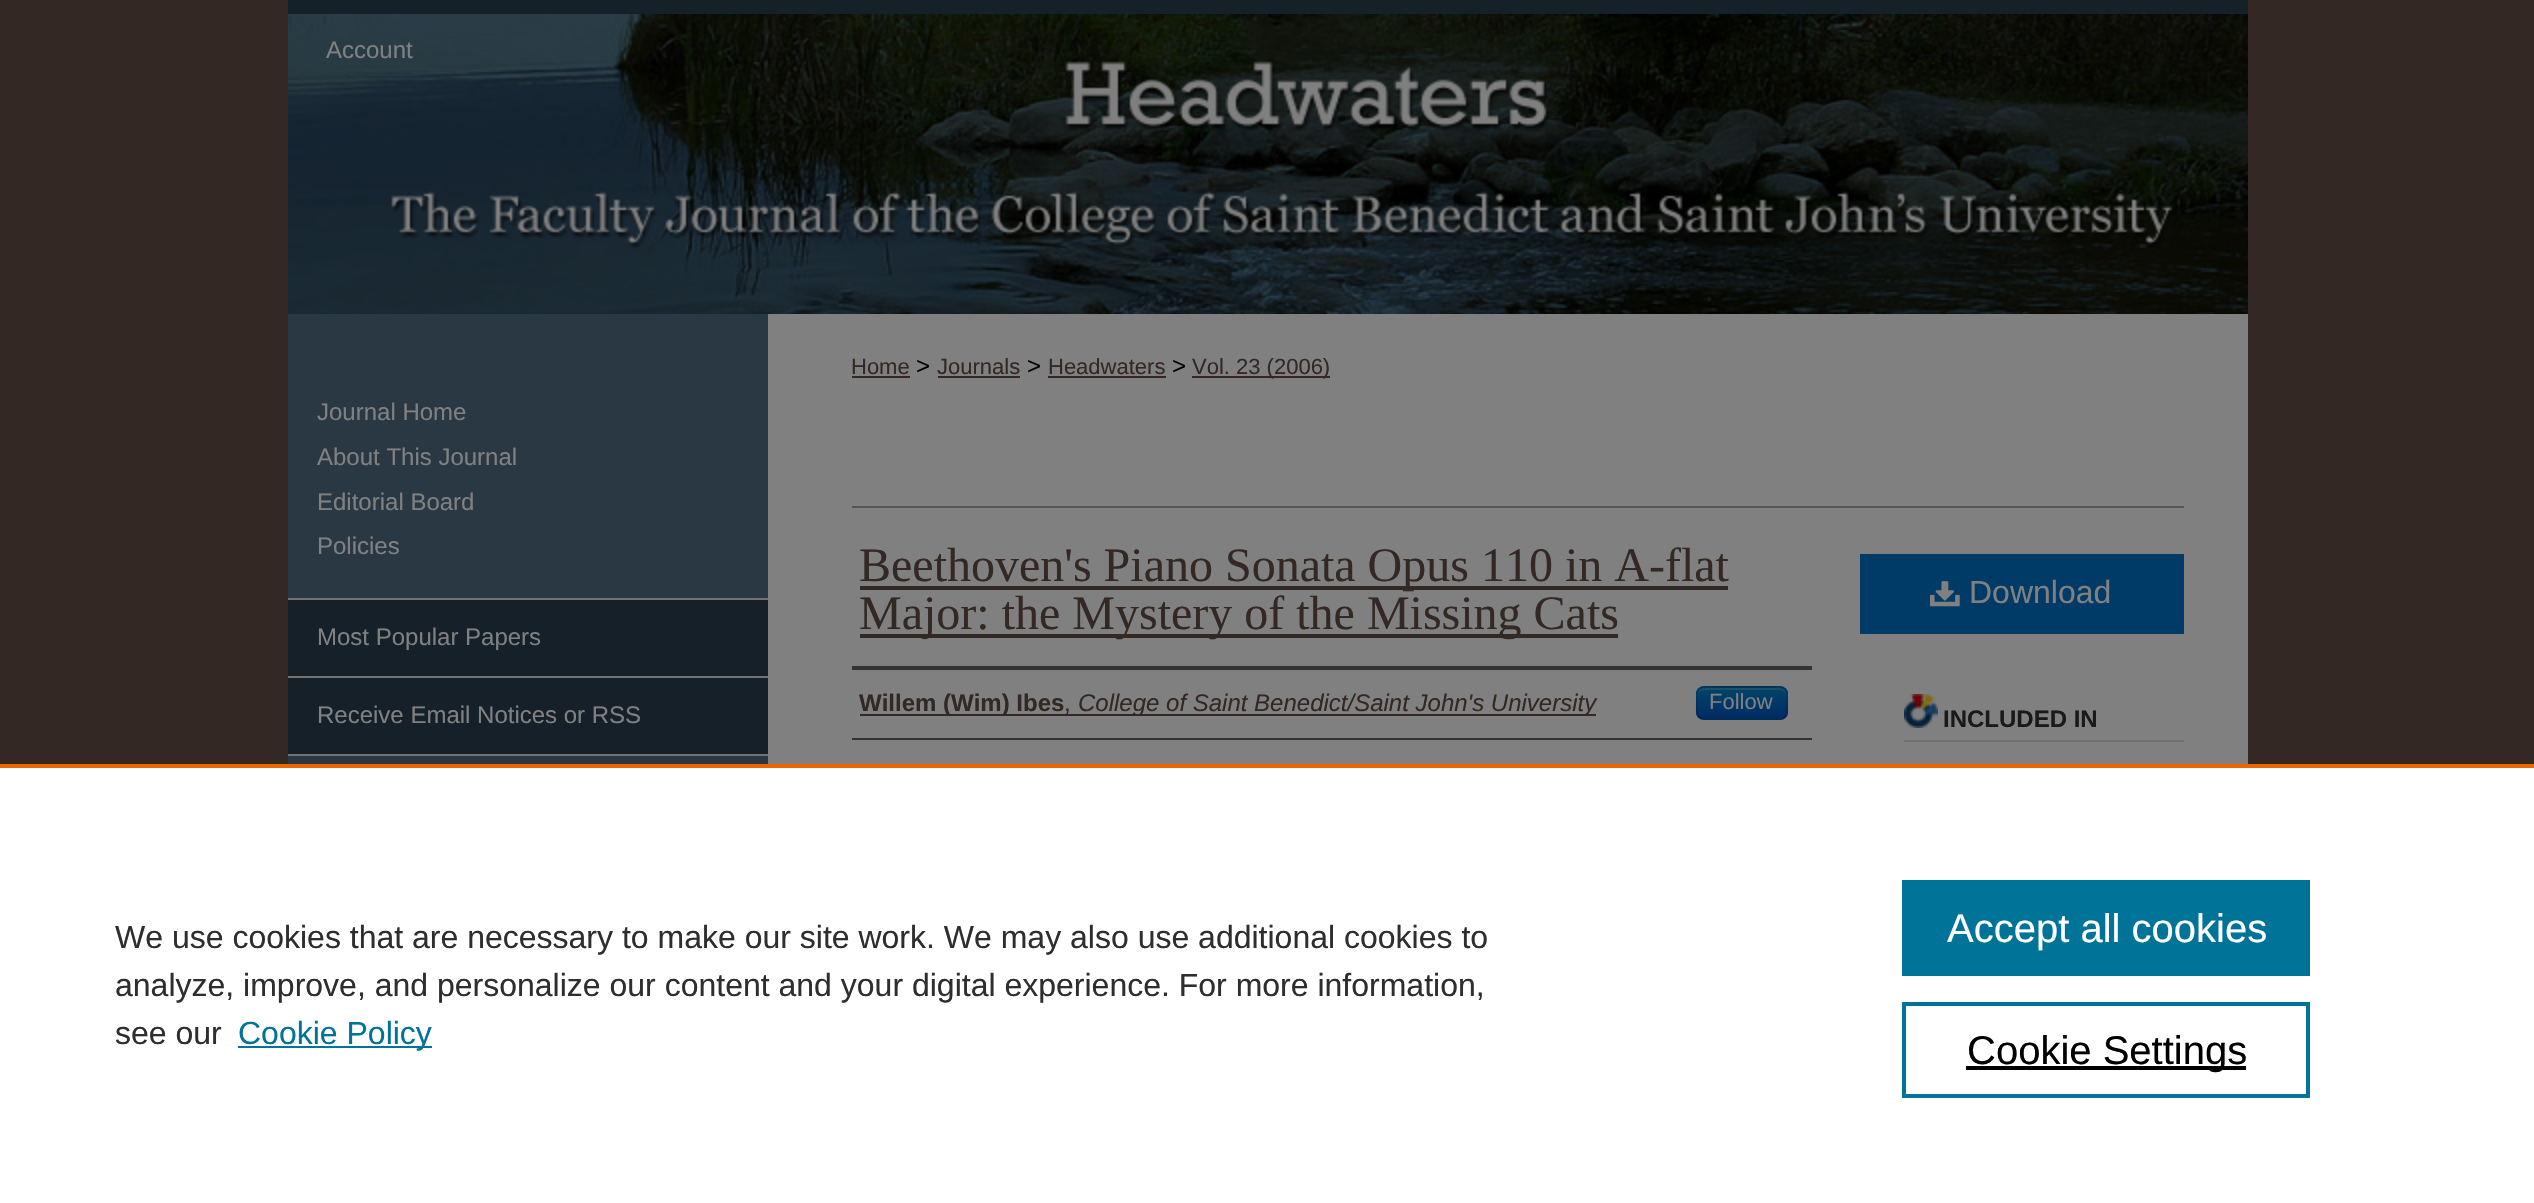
void draw(SkCanvas* canvas) {
    SkPaint paint;
    paint.setAntiAlias(true);
    auto face = [&](const char* family, int weight, float size, bool italic = false) {
        SkFontStyle style(weight, SkFontStyle::kNormal_Width,
            italic ? SkFontStyle::kItalic_Slant : SkFontStyle::kUpright_Slant);
        SkFont result(fontMgr->matchFamilyStyle(family, style), size);
        result.setSubpixel(true);
        return result;
    };
    auto write = [&](const char* s, float x, float y, const SkFont& font, SkColor color) {
        SkPaint ink(SkColor4f::FromColor(color));
        ink.setAntiAlias(true);
        canvas->drawString(s, x, y, font, ink);
    };
    auto block = [&](float x, float y, float w, float h, SkColor color) {
        SkPaint ink(SkColor4f::FromColor(color));
        ink.setAntiAlias(true);
        canvas->drawRect(SkRect::MakeXYWH(x, y, w, h), ink);
    };
    auto card = [&](float x, float y, float w, float h, float radius, SkColor color) {
        SkPaint ink(SkColor4f::FromColor(color));
        ink.setAntiAlias(true);
        canvas->drawRoundRect(SkRect::MakeXYWH(x, y, w, h), radius, radius, ink);
    };
    auto paste = [&](const char* path, float x, float y, float w, float h) {
        auto image = SkImages::DeferredFromEncodedData(SkData::MakeFromFileName(path));
        canvas->drawImageRect(image, SkRect::MakeXYWH(x, y, w, h), SkSamplingOptions());
    };
    canvas->clear(SkColorSetRGB(51, 40, 36));
    paste("pic1.png", 288, 14, 1960, 300);
    block(288, 0, 1960, 14, SkColorSetRGB(21, 32, 40));
    auto kFont1 = face("Liberation Sans", 400, 24);
    write("Account", 326, 58, kFont1, SkColorSetRGB(128, 128, 128));
    block(288, 314, 480, 450, SkColorSetRGB(42, 56, 67));
    block(768, 314, 1480, 450, SkColorSetRGB(128, 128, 128));
    write("Journal Home", 317, 420, kFont1, SkColorSetRGB(128, 128, 128));
    write("About This Journal", 317, 465, kFont1, SkColorSetRGB(128, 128, 128));
    write("Editorial Board", 317, 510, kFont1, SkColorSetRGB(128, 128, 128));
    write("Policies", 317, 554, kFont1, SkColorSetRGB(128, 128, 128));
    block(288, 598, 480, 2, SkColorSetRGB(114, 114, 114));
    block(288, 600, 480, 76, SkColorSetRGB(21, 32, 40));
    block(288, 676, 480, 2, SkColorSetRGB(114, 114, 114));
    write("Most Popular Papers", 317, 645, kFont1, SkColorSetRGB(128, 128, 128));
    block(288, 678, 480, 76, SkColorSetRGB(21, 32, 40));
    block(288, 754, 480, 2, SkColorSetRGB(114, 114, 114));
    write("Receive Email Notices or RSS", 317, 723, kFont1, SkColorSetRGB(128, 128, 128));
    auto kFont2 = face("Liberation Sans", 400, 22);
    write("Home", 851, 374, kFont2, SkColorSetRGB(51, 40, 36));
    block(852, 376, 58, 2, SkColorSetRGB(51, 40, 36));
    write(">", 916, 374, kFont1, SK_ColorBLACK);
    write("Journals", 937, 374, kFont2, SkColorSetRGB(51, 40, 36));
    block(938, 376, 82, 2, SkColorSetRGB(51, 40, 36));
    write(">", 1027, 374, kFont1, SK_ColorBLACK);
    write("Headwaters", 1048, 374, kFont2, SkColorSetRGB(51, 40, 36));
    block(1048, 376, 118, 2, SkColorSetRGB(51, 40, 36));
    write(">", 1172, 374, kFont1, SK_ColorBLACK);
    block(1192, 376, 138, 2, SkColorSetRGB(51, 40, 36));
    write("Vol. 23 (2006)", 1192, 374, kFont2, SkColorSetRGB(51, 40, 36));
    block(852, 506, 1332, 2, SkColorSetRGB(85, 85, 85));
    block(860, 586, 868, 4, SkColorSetRGB(51, 40, 36));
    auto kFont3 = face("Liberation Serif", 400, 48);
    write("Beethoven's Piano Sonata Opus 110 in A-flat", 859, 581, kFont3, SkColorSetRGB(51, 40, 36));
    block(860, 634, 758, 4, SkColorSetRGB(51, 40, 36));
    write("Major: the Mystery of the Missing Cats", 859, 629, kFont3, SkColorSetRGB(51, 40, 36));
    block(852, 666, 960, 4, SkColorSetRGB(51, 51, 51));
    block(852, 738, 960, 2, SkColorSetRGB(51, 51, 51));
    block(860, 714, 736, 2, SkColorSetRGB(51, 40, 36));
    auto kFont4 = face("Liberation Sans", 700, 24);
    write("Willem (Wim) Ibes", 859, 711, kFont4, SkColorSetRGB(51, 40, 36));
    write(",", 1064, 711, kFont1, SkColorSetRGB(51, 40, 36));
    auto kFont5 = face("Liberation Sans", 400, 24, true);
    write("College of Saint Benedict/Saint John's University", 1078, 711, kFont5, SkColorSetRGB(51, 40, 36));
    card(1696, 686, 92, 34, 8, SkColorSetRGB(0, 58, 102));
    canvas->save();
    canvas->clipPath(SkPathBuilder().moveTo(1704, 686).lineTo(1780, 686).cubicTo(1784.5f, 686, 1788, 689.5f, 1788, 694).lineTo(1788, 712).cubicTo(1788, 716.5f, 1784.5f, 720, 1780, 720).lineTo(1704, 720).cubicTo(1699.5f, 720, 1696, 716.5f, 1696, 712).lineTo(1696, 694).cubicTo(1696, 689.5f, 1699.5f, 686, 1704, 686).close().detach(), true);
    {
        const SkColor colors[] = {SkColorSetRGB(0, 68, 102), SkColorSetRGB(0, 43, 102)};
        const float stops[] = {0, 1};
        const SkPoint ends[] = {{1742, 688}, {1742, 718}};
        paint.setShader(SkGradientShader::MakeLinear(ends, colors, stops, 2, SkTileMode::kClamp));
        paint.setAlpha(255);
    }
    canvas->drawRect(SkRect::MakeXYWH(1696, 688, 92, 30), paint);
    canvas->restore();
    paint.setShader(nullptr);
    paint.setColor(SkColorSetARGB(51, 128, 128, 128));
    canvas->drawPath(SkPathBuilder().moveTo(1704, 690).lineTo(1780, 690).cubicTo(1783, 690, 1786, 693, 1786, 696).cubicTo(1786, 685, 1776, 688, 1767, 688).lineTo(1717, 688).cubicTo(1708, 688, 1698, 685, 1698, 696).cubicTo(1698, 693, 1701, 690, 1704, 690).close().detach(), paint);
    paint.setStyle(SkPaint::kStroke_Style);
    paint.setStrokeWidth(2);
    paint.setColor(SkColorSetARGB(64, 0, 0, 0));
    canvas->drawPath(SkPathBuilder().moveTo(1785, 717).cubicTo(1783.5f, 718.5f, 1782, 719, 1780, 719).lineTo(1704, 719).cubicTo(1702, 719, 1700.5f, 718.5f, 1699, 717).detach(), paint);
    paint.setColor(SkColorSetARGB(26, 0, 0, 0));
    canvas->drawPath(SkPathBuilder().moveTo(1699, 717).cubicTo(1695.5f, 713.5f, 1697, 707.5f, 1697, 703).cubicTo(1697, 685, 1698, 687, 1716.5f, 687).lineTo(1767.5f, 687).cubicTo(1786, 687, 1787, 685, 1787, 703).cubicTo(1787, 707.5f, 1788.5f, 713.5f, 1785, 717).detach(), paint);
    write("Follow", 1709, 709, kFont2, SkColorSetRGB(128, 128, 128));
    block(1860, 554, 324, 80, SkColorSetRGB(0, 58, 102));
    paste("pic2.png", 1930, 581, 30, 26);
    auto kFont6 = face("Liberation Sans", 400, 32);
    write("Download", 1969, 603, kFont6, SkColorSetRGB(128, 128, 128));
    paste("pic3.png", 1904, 694, 34, 34);
    block(1904, 740, 280, 2, SkColorSetRGB(111, 111, 111));
    write("INCLUDED IN", 1943, 727, kFont4, SkColorSetRGB(26, 26, 26));
    block(0, 768, 2534, 435, SK_ColorWHITE);
    block(0, 764, 2534, 4, SkColorSetRGB(235, 101, 0));
    write("We use cookies that are necessary to make our site work. We may also use additional cookies to", 115, 948, kFont6, SkColorSetRGB(46, 46, 46));
    write("analyze, improve, and personalize our content and your digital experience. For more information,", 115, 996, kFont6, SkColorSetRGB(46, 46, 46));
    write("see our", 115, 1044, kFont6, SkColorSetRGB(46, 46, 46));
    block(238, 1046, 194, 2, SkColorSetRGB(0, 115, 152));
    write("Cookie Policy", 238, 1044, kFont6, SkColorSetRGB(0, 115, 152));
    block(1902, 880, 408, 96, SkColorSetRGB(0, 115, 152));
    auto kFont7 = face("Liberation Sans", 400, 40);
    write("Accept all cookies", 1947, 942, kFont7, SK_ColorWHITE);
    paint.setStrokeWidth(4);
    paint.setColor(SkColorSetRGB(0, 115, 152));
    canvas->drawRect(SkRect::MakeXYWH(1904, 1004, 404, 92), paint);
    block(1966, 1066, 280, 4, SK_ColorBLACK);
    write("Cookie Settings", 1967, 1064, kFont7, SK_ColorBLACK);
}
